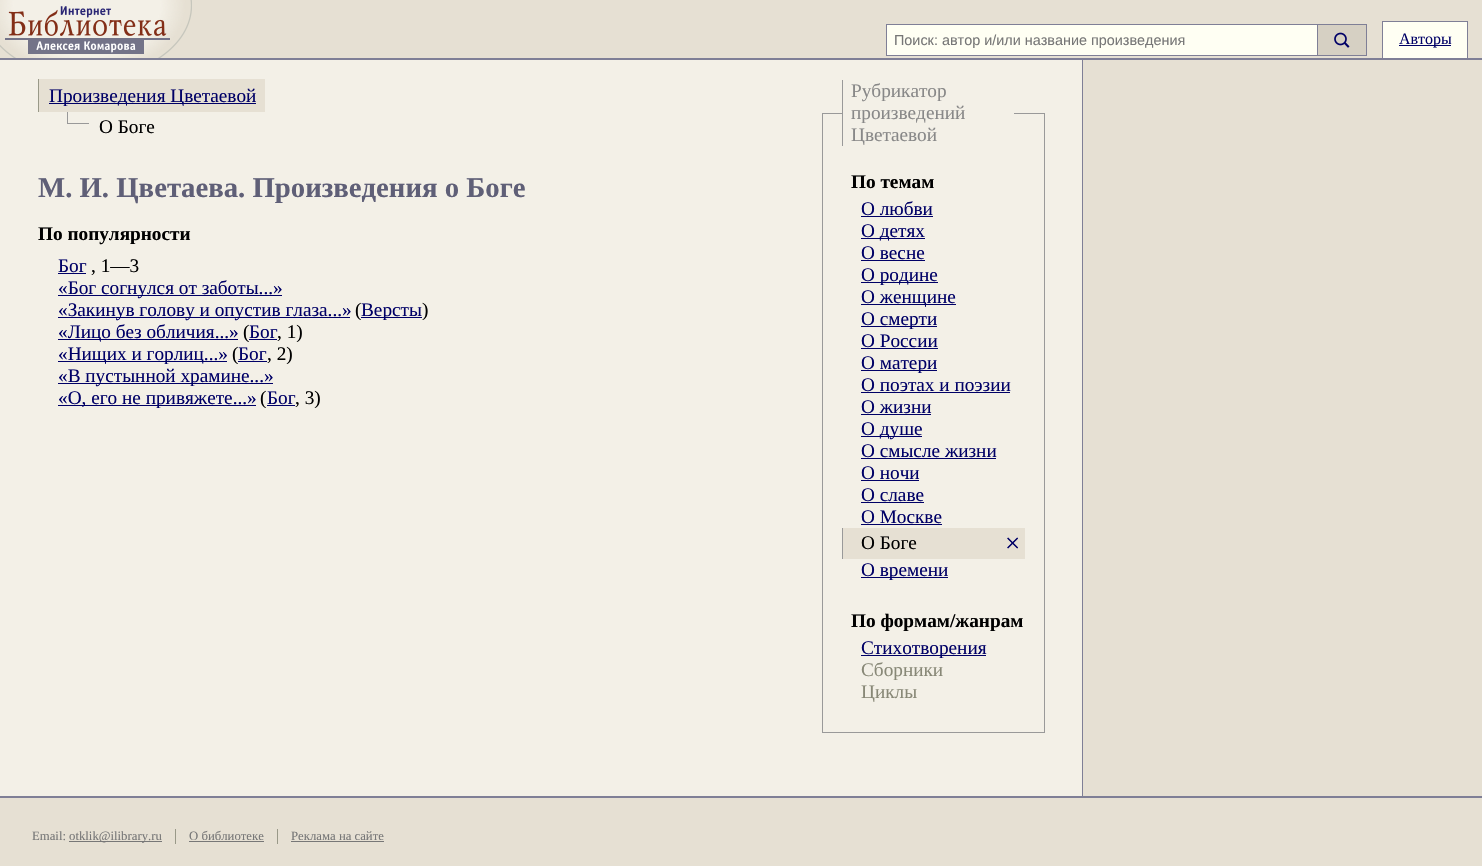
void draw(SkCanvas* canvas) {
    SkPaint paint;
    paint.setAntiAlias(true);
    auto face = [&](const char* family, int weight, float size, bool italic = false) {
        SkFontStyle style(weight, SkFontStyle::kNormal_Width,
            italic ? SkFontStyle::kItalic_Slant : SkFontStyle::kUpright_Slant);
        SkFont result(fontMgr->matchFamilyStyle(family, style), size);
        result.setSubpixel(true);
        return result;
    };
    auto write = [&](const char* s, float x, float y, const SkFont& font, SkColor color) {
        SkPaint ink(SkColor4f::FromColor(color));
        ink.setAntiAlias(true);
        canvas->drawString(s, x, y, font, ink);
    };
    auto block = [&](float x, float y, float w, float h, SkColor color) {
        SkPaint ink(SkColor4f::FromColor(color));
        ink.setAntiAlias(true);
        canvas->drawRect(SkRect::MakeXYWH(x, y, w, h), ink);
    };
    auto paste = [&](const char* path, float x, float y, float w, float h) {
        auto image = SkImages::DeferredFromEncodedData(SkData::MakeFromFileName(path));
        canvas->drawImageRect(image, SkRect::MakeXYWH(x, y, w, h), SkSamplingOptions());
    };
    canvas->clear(SkColorSetRGB(243, 240, 231));
    block(0, 0, 1482, 58, SkColorSetRGB(230, 224, 211));
    block(0, 58, 1482, 2, SkColorSetRGB(127, 127, 150));
    paste("pic1.png", 0, 0, 192, 58);
    paste("pic2.png", 5, 38, 165, 16);
    paint.setColor(SkColorSetRGB(255, 255, 243));
    canvas->drawRect(SkRect::MakeXYWH(886.5f, 24.5f, 431, 31), paint);
    paint.setStyle(SkPaint::kStroke_Style);
    paint.setStrokeWidth(1);
    paint.setColor(SkColorSetRGB(127, 127, 150));
    canvas->drawRect(SkRect::MakeXYWH(886.5f, 24.5f, 431, 31), paint);
    auto kFont1 = face("Liberation Sans", 400, 14.4f);
    write("Поиск: автор и/или название произведения", 894, 45, kFont1, SkColorSetRGB(119, 119, 119));
    block(1318, 25, 48, 30, SkColorSetRGB(214, 208, 195));
    block(1318, 24, 49, 1, SkColorSetRGB(127, 127, 150));
    block(1366, 24, 1, 32, SkColorSetRGB(127, 127, 150));
    block(1318, 55, 49, 1, SkColorSetRGB(127, 127, 150));
    paste("pic3.png", 1334, 32, 16, 16);
    block(1383, 22, 84, 36, SkColorSetRGB(255, 255, 243));
    block(1382, 21, 86, 1, SkColorSetRGB(127, 127, 150));
    block(1467, 21, 1, 37, SkColorSetRGB(127, 127, 150));
    block(1382, 21, 1, 37, SkColorSetRGB(127, 127, 150));
    block(1399, 45, 52, 1, SkColorSetRGB(0, 0, 102));
    auto kFont2 = face("Liberation Serif", 400, 16);
    write("Авторы", 1399, 44, kFont2, SkColorSetRGB(0, 0, 102));
    block(38, 79, 1, 33, SkColorSetRGB(153, 153, 136));
    block(39, 79, 226, 33, SkColorSetRGB(230, 224, 211));
    block(49, 103, 207, 1, SkColorSetRGB(0, 0, 102));
    auto kFont3 = face("Liberation Serif", 400, 19.25f);
    write("Произведения Цветаевой", 49, 102, kFont3, SkColorSetRGB(0, 0, 102));
    paint.setColor(SkColorSetRGB(153, 153, 153));
    canvas->drawRect(SkRect::MakeXYWH(822.5f, 113.5f, 222, 619), paint);
    block(843, 113, 171, 1, SkColorSetRGB(243, 240, 231));
    block(842, 80, 1, 66, SkColorSetRGB(153, 153, 153));
    write("Рубрикатор", 851, 97, kFont3, SkColorSetRGB(136, 136, 136));
    write("произведений", 851, 119, kFont3, SkColorSetRGB(136, 136, 136));
    write("Цветаевой", 851, 141, kFont3, SkColorSetRGB(136, 136, 136));
    auto kFont4 = face("Liberation Serif", 700, 19.25f);
    write("По темам", 851, 188, kFont4, SK_ColorBLACK);
    write("О любви", 861, 215, kFont3, SkColorSetRGB(0, 0, 102));
    block(861, 216, 72, 1, SkColorSetRGB(0, 0, 102));
    block(861, 238, 64, 1, SkColorSetRGB(0, 0, 102));
    write("О детях", 861, 237, kFont3, SkColorSetRGB(0, 0, 102));
    write("О весне", 861, 259, kFont3, SkColorSetRGB(0, 0, 102));
    block(861, 260, 64, 1, SkColorSetRGB(0, 0, 102));
    block(861, 282, 77, 1, SkColorSetRGB(0, 0, 102));
    write("О родине", 861, 281, kFont3, SkColorSetRGB(0, 0, 102));
    block(861, 304, 95, 1, SkColorSetRGB(0, 0, 102));
    write("О женщине", 861, 303, kFont3, SkColorSetRGB(0, 0, 102));
    block(861, 326, 76, 1, SkColorSetRGB(0, 0, 102));
    write("О смерти", 861, 325, kFont3, SkColorSetRGB(0, 0, 102));
    write("О России", 861, 347, kFont3, SkColorSetRGB(0, 0, 102));
    block(861, 348, 77, 1, SkColorSetRGB(0, 0, 102));
    block(861, 370, 76, 1, SkColorSetRGB(0, 0, 102));
    write("О матери", 861, 369, kFont3, SkColorSetRGB(0, 0, 102));
    write("О поэтах и поэзии", 861, 391, kFont3, SkColorSetRGB(0, 0, 102));
    block(861, 392, 149, 1, SkColorSetRGB(0, 0, 102));
    write("О жизни", 861, 413, kFont3, SkColorSetRGB(0, 0, 102));
    block(861, 414, 70, 1, SkColorSetRGB(0, 0, 102));
    block(861, 436, 61, 1, SkColorSetRGB(0, 0, 102));
    write("О душе", 861, 435, kFont3, SkColorSetRGB(0, 0, 102));
    write("О смысле жизни", 861, 457, kFont3, SkColorSetRGB(0, 0, 102));
    block(861, 458, 135, 1, SkColorSetRGB(0, 0, 102));
    write("О ночи", 861, 479, kFont3, SkColorSetRGB(0, 0, 102));
    block(861, 480, 58, 1, SkColorSetRGB(0, 0, 102));
    write("О славе", 861, 501, kFont3, SkColorSetRGB(0, 0, 102));
    block(861, 502, 63, 1, SkColorSetRGB(0, 0, 102));
    write("О Москве", 861, 523, kFont3, SkColorSetRGB(0, 0, 102));
    block(861, 524, 81, 1, SkColorSetRGB(0, 0, 102));
    block(843, 528, 182, 31, SkColorSetRGB(230, 224, 211));
    block(842, 528, 1, 31, SkColorSetRGB(153, 153, 153));
    write("О Боге", 861, 549, kFont3, SK_ColorBLACK);
    auto kFont5 = face("Liberation Serif", 400, 27);
    write("×", 1005, 552, kFont5, SkColorSetRGB(0, 0, 102));
    block(861, 577, 87, 1, SkColorSetRGB(0, 0, 102));
    write("О времени", 861, 576, kFont3, SkColorSetRGB(0, 0, 102));
    write("По формам/жанрам", 851, 627, kFont4, SK_ColorBLACK);
    block(861, 655, 125, 1, SkColorSetRGB(0, 0, 102));
    write("Стихотворения", 861, 654, kFont3, SkColorSetRGB(0, 0, 102));
    write("Сборники", 861, 676, kFont3, SkColorSetRGB(136, 136, 119));
    write("Циклы", 861, 698, kFont3, SkColorSetRGB(136, 136, 119));
    block(67, 123, 22, 1, SkColorSetRGB(153, 153, 153));
    block(67, 112, 1, 12, SkColorSetRGB(153, 153, 153));
    write("О Боге", 99, 133, kFont3, SK_ColorBLACK);
    auto kFont6 = face("Liberation Serif", 700, 28.75f);
    write("М. И. Цветаева. Произведения о Боге", 38, 197, kFont6, SkColorSetRGB(95, 95, 119));
    write("По популярности", 38, 240, kFont4, SK_ColorBLACK);
    write("Бог", 58, 272, kFont3, SkColorSetRGB(0, 0, 102));
    block(58, 273, 28, 1, SkColorSetRGB(0, 0, 102));
    write(", 1—3", 91, 272, kFont3, SK_ColorBLACK);
    block(58, 295, 224, 1, SkColorSetRGB(0, 0, 102));
    write("«Бог согнулся от заботы...»", 58, 294, kFont3, SkColorSetRGB(0, 0, 102));
    block(58, 317, 292, 1, SkColorSetRGB(0, 0, 102));
    write("«Закинув голову и опустив глаза...»", 58, 316, kFont3, SkColorSetRGB(0, 0, 102));
    write("(", 355, 316, kFont3, SK_ColorBLACK);
    block(361, 317, 61, 1, SkColorSetRGB(0, 0, 102));
    write("Версты", 361, 316, kFont3, SkColorSetRGB(0, 0, 102));
    write(")", 422, 316, kFont3, SK_ColorBLACK);
    block(58, 339, 180, 1, SkColorSetRGB(0, 0, 102));
    write("«Лицо без обличия...»", 58, 338, kFont3, SkColorSetRGB(0, 0, 102));
    write("(", 243, 338, kFont3, SK_ColorBLACK);
    write("Бог", 249, 338, kFont3, SkColorSetRGB(0, 0, 102));
    block(249, 339, 28, 1, SkColorSetRGB(0, 0, 102));
    write(", 1)", 277, 338, kFont3, SK_ColorBLACK);
    block(58, 361, 169, 1, SkColorSetRGB(0, 0, 102));
    write("«Нищих и горлиц...»", 58, 360, kFont3, SkColorSetRGB(0, 0, 102));
    write("(", 232, 360, kFont3, SK_ColorBLACK);
    write("Бог", 238, 360, kFont3, SkColorSetRGB(0, 0, 102));
    block(238, 361, 29, 1, SkColorSetRGB(0, 0, 102));
    write(", 2)", 267, 360, kFont3, SK_ColorBLACK);
    block(58, 383, 215, 1, SkColorSetRGB(0, 0, 102));
    write("«В пустынной храмине...»", 58, 382, kFont3, SkColorSetRGB(0, 0, 102));
    block(58, 405, 198, 1, SkColorSetRGB(0, 0, 102));
    write("«О, его не привяжете...»", 58, 404, kFont3, SkColorSetRGB(0, 0, 102));
    write("(", 260, 404, kFont3, SK_ColorBLACK);
    write("Бог", 267, 404, kFont3, SkColorSetRGB(0, 0, 102));
    block(267, 405, 28, 1, SkColorSetRGB(0, 0, 102));
    write(", 3)", 295, 404, kFont3, SK_ColorBLACK);
    block(1083, 60, 399, 736, SkColorSetRGB(230, 224, 211));
    block(1082, 60, 1, 736, SkColorSetRGB(127, 127, 150));
    block(0, 798, 1482, 68, SkColorSetRGB(230, 224, 211));
    block(0, 796, 1482, 2, SkColorSetRGB(127, 127, 150));
    block(175, 827, 1, 19, SkColorSetRGB(153, 153, 136));
    block(277, 827, 1, 19, SkColorSetRGB(153, 153, 136));
    block(175, 827, 103, 2, SkColorSetRGB(230, 224, 211));
    block(175, 844, 103, 2, SkColorSetRGB(230, 224, 211));
    auto kFont7 = face("Liberation Serif", 400, 12.75f);
    write("Email:", 32, 840, kFont7, SkColorSetRGB(119, 119, 119));
    block(69, 841, 93, 1, SkColorSetRGB(119, 119, 119));
    write("otklik@ilibrary.ru", 69, 840, kFont7, SkColorSetRGB(119, 119, 119));
    write("О библиотеке", 189, 840, kFont7, SkColorSetRGB(119, 119, 119));
    block(189, 841, 75, 1, SkColorSetRGB(119, 119, 119));
    write("Реклама на сайте", 291, 840, kFont7, SkColorSetRGB(119, 119, 119));
    block(291, 841, 93, 1, SkColorSetRGB(119, 119, 119));
}
